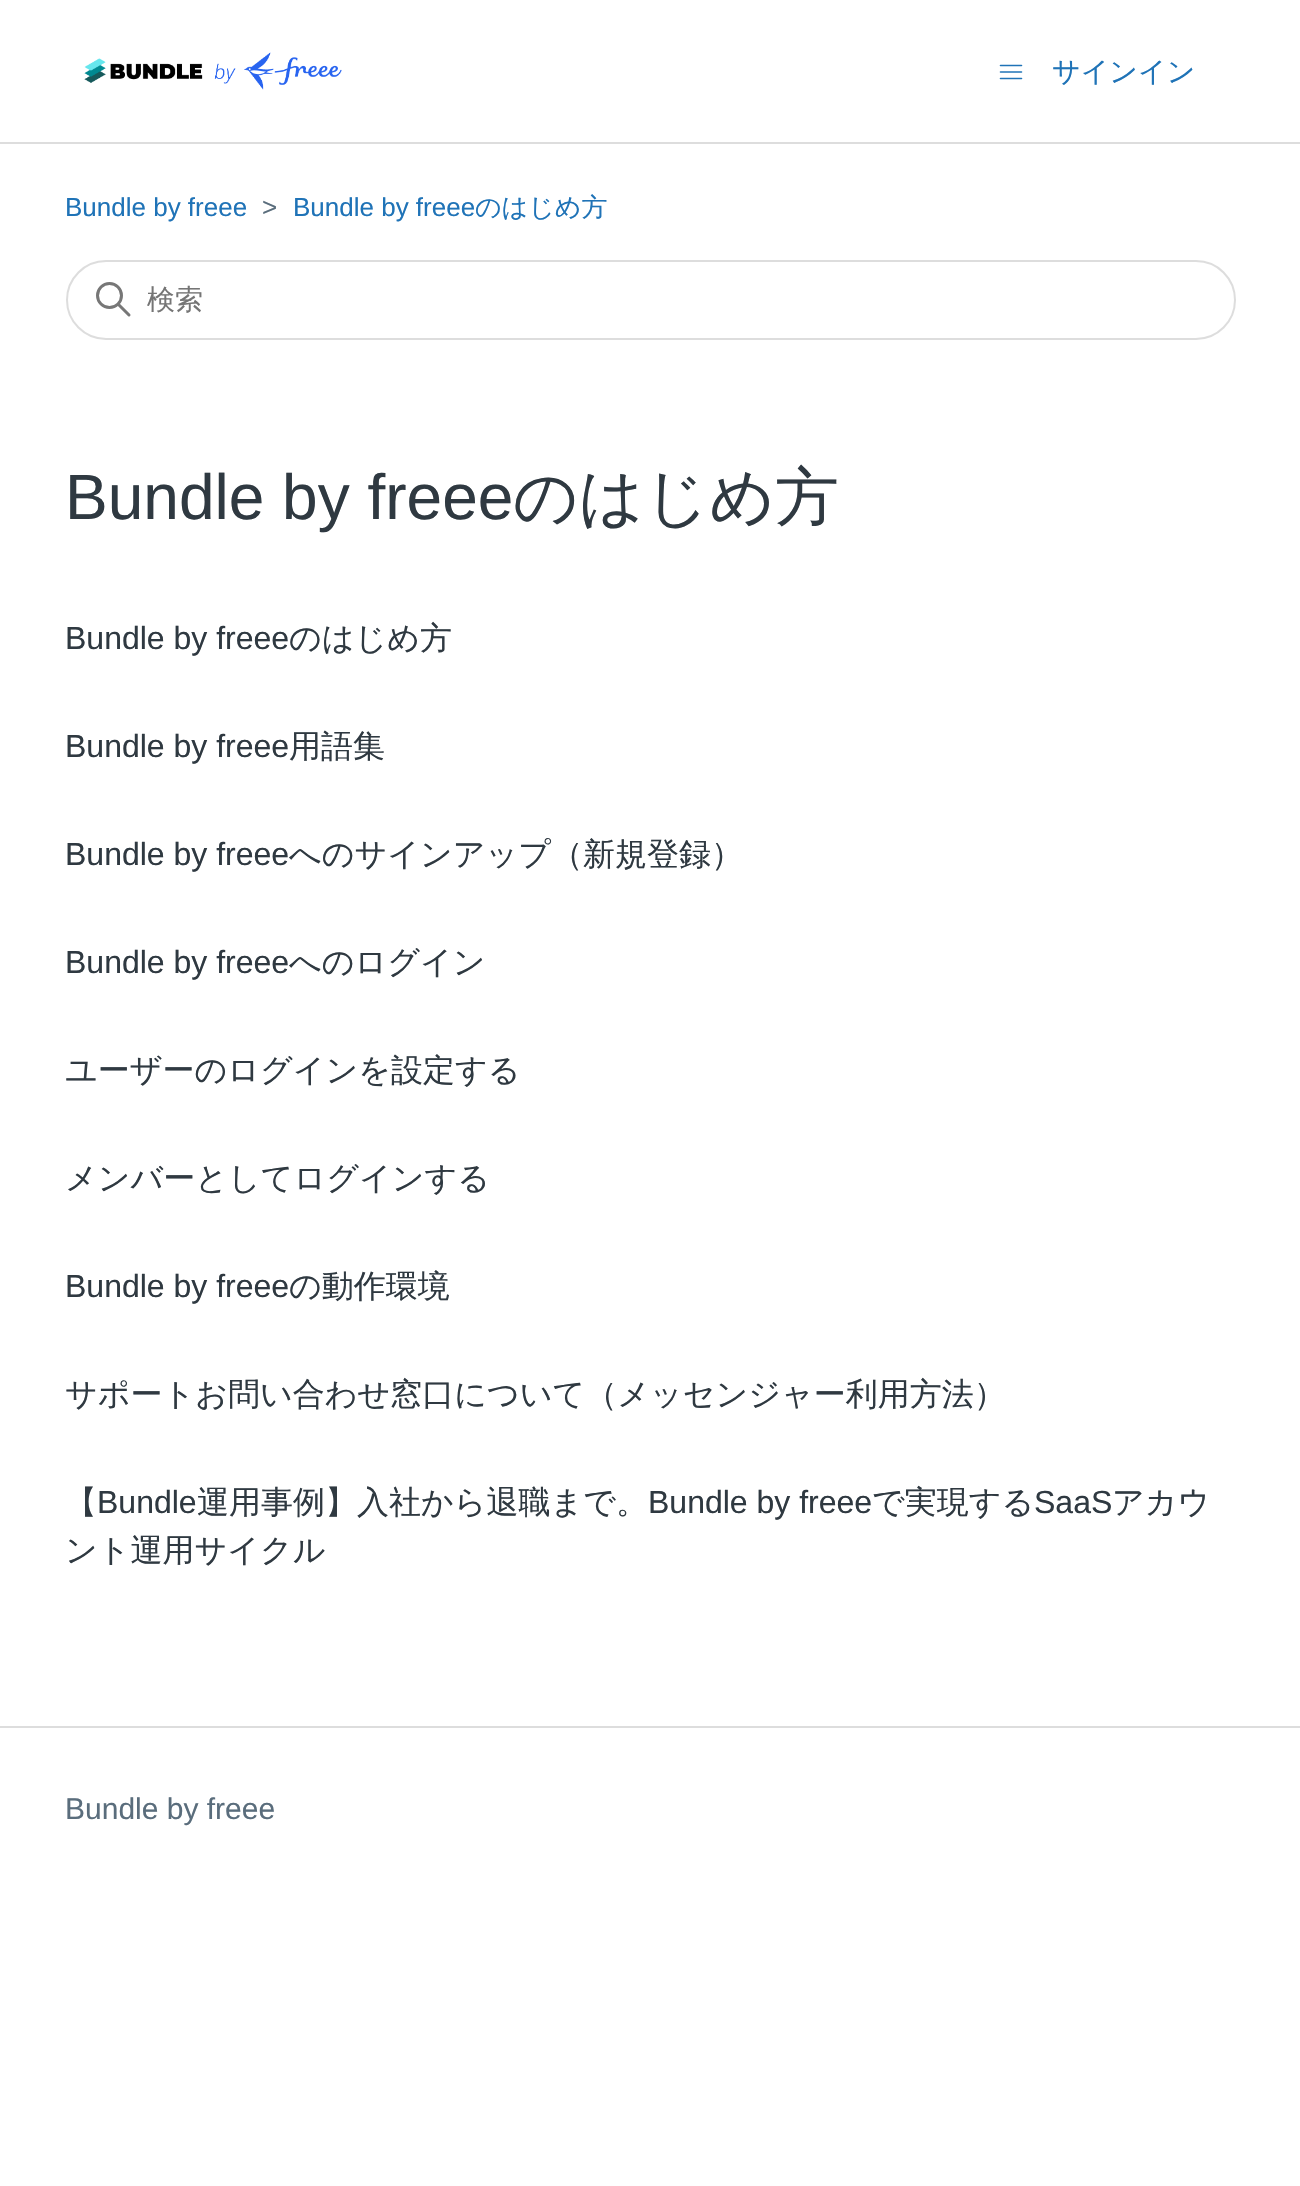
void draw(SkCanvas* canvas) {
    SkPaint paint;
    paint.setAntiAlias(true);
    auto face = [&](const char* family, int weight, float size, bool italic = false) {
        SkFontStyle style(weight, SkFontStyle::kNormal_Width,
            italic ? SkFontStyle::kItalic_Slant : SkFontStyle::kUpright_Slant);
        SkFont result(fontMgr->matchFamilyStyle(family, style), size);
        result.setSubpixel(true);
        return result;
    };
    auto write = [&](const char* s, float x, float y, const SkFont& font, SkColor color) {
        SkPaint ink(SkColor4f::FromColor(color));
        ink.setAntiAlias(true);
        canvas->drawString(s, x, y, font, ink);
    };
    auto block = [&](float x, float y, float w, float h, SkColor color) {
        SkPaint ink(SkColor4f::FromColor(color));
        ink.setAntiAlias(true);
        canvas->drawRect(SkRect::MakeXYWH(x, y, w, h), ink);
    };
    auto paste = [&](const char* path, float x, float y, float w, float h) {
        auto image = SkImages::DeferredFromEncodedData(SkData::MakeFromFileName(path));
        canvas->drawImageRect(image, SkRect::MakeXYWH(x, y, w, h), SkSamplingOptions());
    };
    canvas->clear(SK_ColorWHITE);
    paste("pic1.png", 84, 52, 258, 38);
    paint.setStyle(SkPaint::kStroke_Style);
    paint.setStrokeWidth(1.6f);
    paint.setStrokeCap(SkPaint::kRound_Cap);
    paint.setColor(SkColorSetRGB(31, 115, 183));
    canvas->drawPath(SkPathBuilder().moveTo(1000.5f, 65.5f).lineTo(1021.5f, 65.5f).moveTo(1000.5f, 72).lineTo(1021.5f, 72).moveTo(1000.5f, 78.5f).lineTo(1021.5f, 78.5f).detach(), paint);
    auto kFont1 = face("WenQuanYi Zen Hei", 500, 28);
    write("サインイン", 1052, 81, kFont1, SkColorSetRGB(31, 115, 183));
    block(0, 142, 1300, 2, SkColorSetRGB(221, 221, 221));
    auto kFont2 = face("Liberation Sans", 400, 26);
    write("Bundle by freee", 65, 216, kFont2, SkColorSetRGB(31, 115, 183));
    write(">", 262, 216, kFont2, SkColorSetRGB(90, 109, 124));
    write("Bundle by freee", 293, 216, kFont2, SkColorSetRGB(31, 115, 183));
    auto kFont3 = face("WenQuanYi Zen Hei", 500, 26);
    write("のはじめ方", 475, 216, kFont3, SkColorSetRGB(31, 115, 183));
    paint.setStrokeWidth(2);
    paint.setStrokeCap(SkPaint::kButt_Cap);
    paint.setColor(SkColorSetRGB(221, 221, 221));
    canvas->drawRoundRect(SkRect::MakeXYWH(67, 261, 1168, 78), 39, 39, paint);
    paint.setStrokeWidth(3);
    paint.setColor(SkColorSetRGB(119, 119, 119));
    canvas->drawCircle(109.5f, 295.5f, 12, paint);
    paint.setStrokeCap(SkPaint::kRound_Cap);
    canvas->drawPath(SkPathBuilder().moveTo(129, 315).lineTo(118.5f, 304.5f).detach(), paint);
    write("検索", 147, 309, kFont1, SkColorSetRGB(117, 117, 117));
    auto kFont4 = face("Liberation Sans", 400, 64);
    write("Bundle by freee", 65, 519, kFont4, SkColorSetRGB(47, 57, 65));
    auto kFont5 = face("WenQuanYi Zen Hei", 500, 64);
    write("のはじめ方", 513, 519, kFont5, SkColorSetRGB(47, 57, 65));
    auto kFont6 = face("Liberation Sans", 400, 32);
    write("Bundle by freee", 65, 649, kFont6, SkColorSetRGB(47, 57, 65));
    auto kFont7 = face("WenQuanYi Zen Hei", 500, 32);
    write("のはじめ方", 289, 649, kFont7, SkColorSetRGB(47, 57, 65));
    write("Bundle by freee", 65, 757, kFont6, SkColorSetRGB(47, 57, 65));
    write("用語集", 289, 757, kFont7, SkColorSetRGB(47, 57, 65));
    write("Bundle by freee", 65, 865, kFont6, SkColorSetRGB(47, 57, 65));
    write("へのサインアップ（新規登録）", 289, 865, kFont7, SkColorSetRGB(47, 57, 65));
    write("Bundle by freee", 65, 973, kFont6, SkColorSetRGB(47, 57, 65));
    write("へのログイン", 289, 973, kFont7, SkColorSetRGB(47, 57, 65));
    write("ユーザーのログインを設定する", 65, 1081, kFont7, SkColorSetRGB(47, 57, 65));
    write("メンバーとしてログインする", 65, 1189, kFont7, SkColorSetRGB(47, 57, 65));
    write("Bundle by freee", 65, 1297, kFont6, SkColorSetRGB(47, 57, 65));
    write("の動作環境", 289, 1297, kFont7, SkColorSetRGB(47, 57, 65));
    write("サポートお問い合わせ窓口について（メッセンジャー利用方法）", 65, 1405, kFont7, SkColorSetRGB(47, 57, 65));
    write("【", 65, 1513, kFont7, SkColorSetRGB(47, 57, 65));
    write("Bundle", 97, 1513, kFont6, SkColorSetRGB(47, 57, 65));
    write("運用事例】入社から退職まで。", 197, 1513, kFont7, SkColorSetRGB(47, 57, 65));
    write("Bundle by freee", 648, 1513, kFont6, SkColorSetRGB(47, 57, 65));
    write("で実現する", 872, 1513, kFont7, SkColorSetRGB(47, 57, 65));
    write("SaaS", 1034, 1513, kFont6, SkColorSetRGB(47, 57, 65));
    write("アカウ", 1112, 1513, kFont7, SkColorSetRGB(47, 57, 65));
    write("ント運用サイクル", 65, 1561, kFont7, SkColorSetRGB(47, 57, 65));
    block(0, 1726, 1300, 2, SkColorSetRGB(221, 221, 221));
    auto kFont8 = face("Liberation Sans", 400, 30);
    write("Bundle by freee", 65, 1819, kFont8, SkColorSetRGB(90, 109, 124));
}
